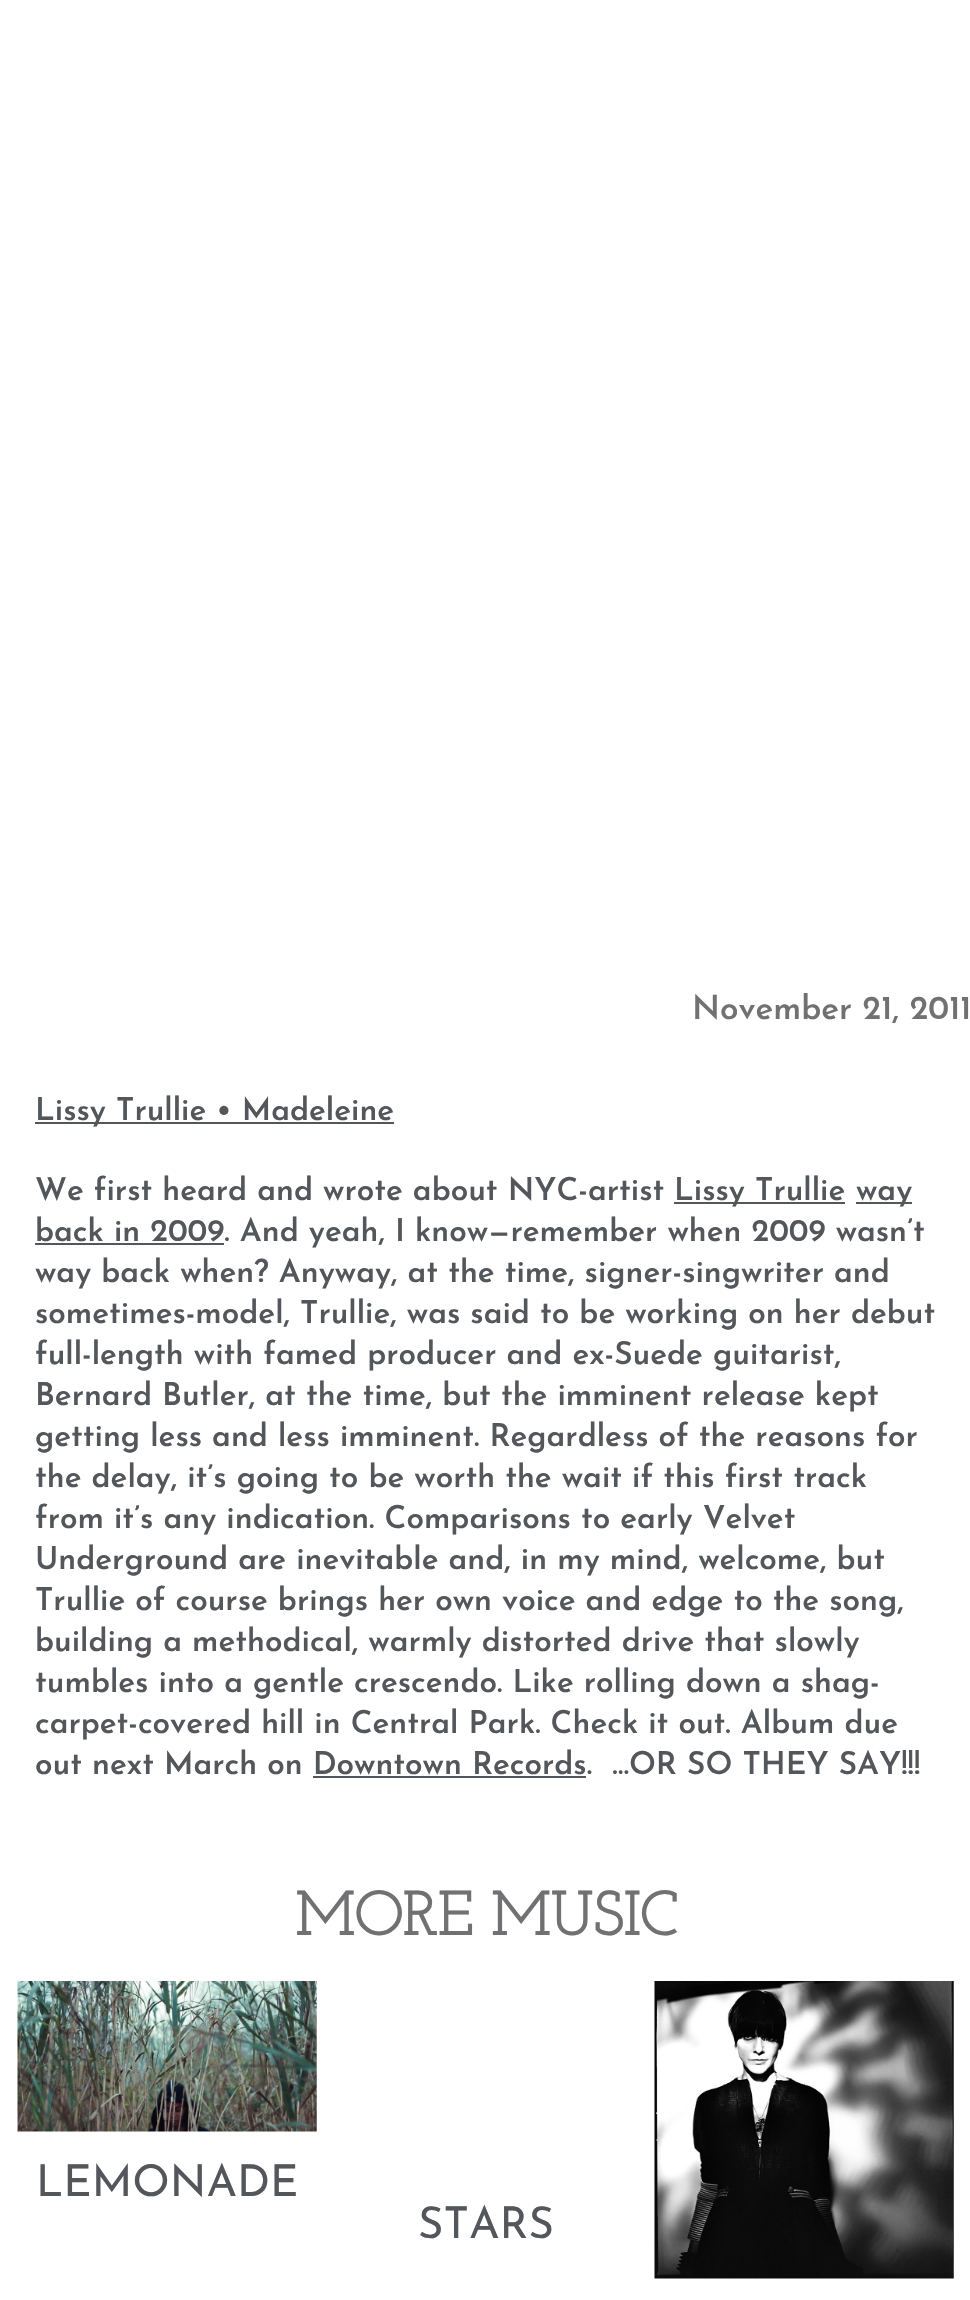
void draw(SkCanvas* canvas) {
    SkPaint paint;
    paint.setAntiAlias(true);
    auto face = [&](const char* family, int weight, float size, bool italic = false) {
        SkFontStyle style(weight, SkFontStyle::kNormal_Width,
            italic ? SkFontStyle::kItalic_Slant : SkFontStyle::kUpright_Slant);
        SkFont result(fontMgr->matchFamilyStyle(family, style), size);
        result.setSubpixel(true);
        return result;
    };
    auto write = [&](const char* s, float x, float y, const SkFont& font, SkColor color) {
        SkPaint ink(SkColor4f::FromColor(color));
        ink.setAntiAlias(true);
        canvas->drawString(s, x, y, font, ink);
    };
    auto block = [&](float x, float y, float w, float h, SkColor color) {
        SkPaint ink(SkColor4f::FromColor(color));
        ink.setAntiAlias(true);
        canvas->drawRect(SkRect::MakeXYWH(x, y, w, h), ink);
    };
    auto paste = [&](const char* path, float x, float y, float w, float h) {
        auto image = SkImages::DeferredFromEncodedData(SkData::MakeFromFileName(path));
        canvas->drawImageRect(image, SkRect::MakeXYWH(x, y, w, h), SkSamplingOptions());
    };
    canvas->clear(SK_ColorWHITE);
    auto kFont1 = face("Josefin Sans", 600, 33.25f);
    write("November 21, 2011", 692, 1019, kFont1, SkColorSetRGB(113, 112, 115));
    block(35, 1122, 359, 2, SkColorSetRGB(83, 86, 90));
    auto kFont2 = face("Josefin Sans", 600, 31.5f);
    write("Lissy Trullie • Madeleine", 35, 1120, kFont2, SkColorSetRGB(83, 86, 90));
    write("We first heard and wrote about NYC-artist", 35, 1200, kFont2, SkColorSetRGB(83, 86, 90));
    block(674, 1202, 171, 2, SkColorSetRGB(83, 86, 90));
    write("Lissy Trullie", 674, 1200, kFont2, SkColorSetRGB(83, 86, 90));
    block(856, 1202, 56, 2, SkColorSetRGB(83, 86, 90));
    write("way", 856, 1200, kFont2, SkColorSetRGB(83, 86, 90));
    block(35, 1243, 189, 2, SkColorSetRGB(83, 86, 90));
    write("back in 2009. And yeah, I know—remember when 2009 wasn’t", 35, 1241, kFont2, SkColorSetRGB(83, 86, 90));
    write("way back when? Anyway, at the time, signer-singwriter and", 35, 1282, kFont2, SkColorSetRGB(83, 86, 90));
    write("sometimes-model, Trullie, was said to be working on her debut", 35, 1323, kFont2, SkColorSetRGB(83, 86, 90));
    write("full-length with famed producer and ex-Suede guitarist,", 35, 1364, kFont2, SkColorSetRGB(83, 86, 90));
    write("Bernard Butler, at the time, but the imminent release kept", 35, 1405, kFont2, SkColorSetRGB(83, 86, 90));
    write("getting less and less imminent. Regardless of the reasons for", 35, 1446, kFont2, SkColorSetRGB(83, 86, 90));
    write("the delay, it’s going to be worth the wait if this first track", 35, 1487, kFont2, SkColorSetRGB(83, 86, 90));
    write("from it’s any indication. Comparisons to early Velvet", 35, 1528, kFont2, SkColorSetRGB(83, 86, 90));
    write("Underground are inevitable and, in my mind, welcome, but", 35, 1569, kFont2, SkColorSetRGB(83, 86, 90));
    write("Trullie of course brings her own voice and edge to the song,", 35, 1610, kFont2, SkColorSetRGB(83, 86, 90));
    write("building a methodical, warmly distorted drive that slowly", 35, 1651, kFont2, SkColorSetRGB(83, 86, 90));
    write("tumbles into a gentle crescendo. Like rolling down a shag-", 35, 1692, kFont2, SkColorSetRGB(83, 86, 90));
    write("carpet-covered hill in Central Park. Check it out. Album due", 35, 1733, kFont2, SkColorSetRGB(83, 86, 90));
    write("out next March on Downtown Records.  …OR SO THEY SAY!!!", 35, 1774, kFont2, SkColorSetRGB(83, 86, 90));
    block(313, 1776, 273, 2, SkColorSetRGB(83, 86, 90));
    auto kFont3 = face("Josefin Slab", 700, 61.25f);
    write("MORE MUSIC", 295, 1935, kFont3, SkColorSetRGB(113, 112, 115));
    paste("pic1.png", 17, 1981, 300, 151);
    auto kFont4 = face("Josefin Sans", 400, 43.75f);
    write("LEMONADE", 36, 2196, kFont4, SkColorSetRGB(83, 86, 90));
    paste("pic2.png", 654, 1981, 300, 298);
    write("STARS", 418, 2238, kFont4, SkColorSetRGB(83, 86, 90));
}
